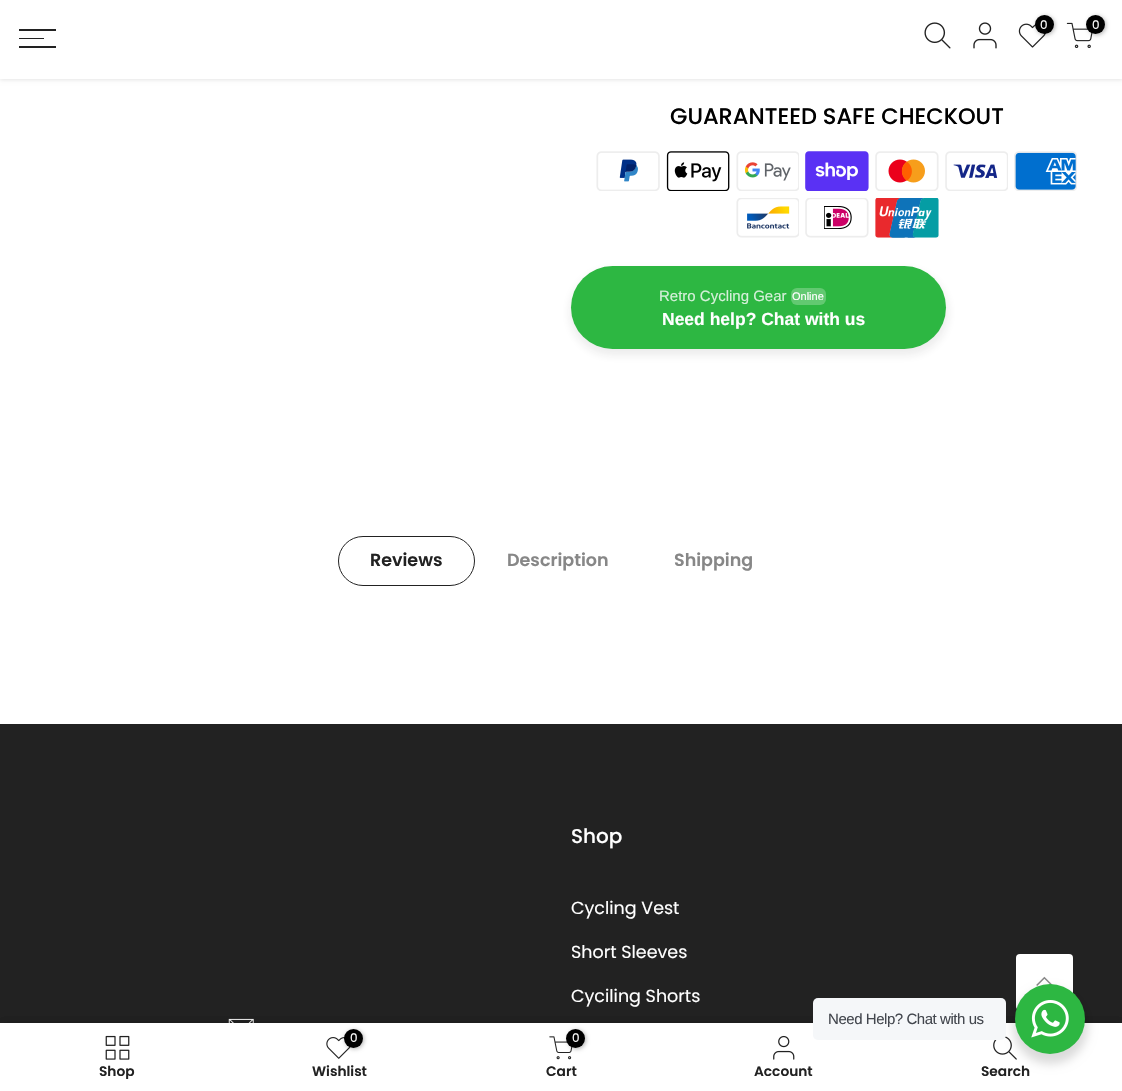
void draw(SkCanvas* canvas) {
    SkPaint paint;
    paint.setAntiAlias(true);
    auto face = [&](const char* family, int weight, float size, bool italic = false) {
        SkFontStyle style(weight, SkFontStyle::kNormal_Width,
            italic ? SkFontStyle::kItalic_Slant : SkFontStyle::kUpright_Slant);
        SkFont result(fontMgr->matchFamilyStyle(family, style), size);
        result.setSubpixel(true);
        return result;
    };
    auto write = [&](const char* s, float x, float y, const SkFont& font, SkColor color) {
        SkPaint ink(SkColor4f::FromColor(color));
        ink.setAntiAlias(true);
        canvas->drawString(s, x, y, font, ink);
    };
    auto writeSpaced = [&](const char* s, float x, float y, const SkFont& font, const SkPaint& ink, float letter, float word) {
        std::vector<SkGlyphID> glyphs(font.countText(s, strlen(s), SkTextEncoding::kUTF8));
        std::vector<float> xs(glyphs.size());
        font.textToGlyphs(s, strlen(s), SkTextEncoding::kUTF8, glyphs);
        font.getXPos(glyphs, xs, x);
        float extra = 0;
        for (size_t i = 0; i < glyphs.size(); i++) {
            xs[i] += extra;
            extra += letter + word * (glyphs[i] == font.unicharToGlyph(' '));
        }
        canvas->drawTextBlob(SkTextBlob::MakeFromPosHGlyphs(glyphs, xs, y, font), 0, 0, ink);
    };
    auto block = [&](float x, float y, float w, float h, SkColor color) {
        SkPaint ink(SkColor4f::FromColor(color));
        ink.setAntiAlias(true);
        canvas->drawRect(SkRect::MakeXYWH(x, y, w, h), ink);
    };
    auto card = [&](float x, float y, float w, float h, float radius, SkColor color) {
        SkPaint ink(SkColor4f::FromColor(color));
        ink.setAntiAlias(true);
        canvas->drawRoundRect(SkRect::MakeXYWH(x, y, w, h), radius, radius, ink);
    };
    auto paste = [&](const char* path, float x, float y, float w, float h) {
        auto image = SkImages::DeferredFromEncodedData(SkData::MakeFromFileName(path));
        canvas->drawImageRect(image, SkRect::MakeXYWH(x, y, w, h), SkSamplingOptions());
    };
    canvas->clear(SK_ColorWHITE);
    paint.setColor(SkColorSetARGB(26, 0, 0, 0));
    paint.setMaskFilter(SkMaskFilter::MakeBlur(kNormal_SkBlurStyle, 2));
    canvas->drawRect(SkRect::MakeXYWH(0, 1, 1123, 79), paint);
    paint.setMaskFilter(nullptr);
    block(0, 0, 1122, 79, SK_ColorWHITE);
    paste("pic1.png", 924, 22, 27, 27);
    paste("pic2.png", 973, 22, 24, 27);
    paste("pic3.png", 1018, 23, 28, 25);
    paint.setColor(SkColorSetARGB(77, 0, 0, 0));
    paint.setMaskFilter(SkMaskFilter::MakeBlur(kNormal_SkBlurStyle, 2));
    canvas->drawRoundRect(SkRect::MakeXYWH(1036, 16, 19, 19), 9.5f, 9.5f, paint);
    paint.setMaskFilter(nullptr);
    paint.setColor(SK_ColorBLACK);
    canvas->drawCircle(1044.5f, 24.5f, 9.5f, paint);
    auto kFont1 = face("Poppins", 400, 12);
    write("0", 1040, 29, kFont1, SK_ColorWHITE);
    paste("pic4.png", 1066, 22, 27, 26);
    paint.setColor(SkColorSetARGB(77, 0, 0, 0));
    paint.setMaskFilter(SkMaskFilter::MakeBlur(kNormal_SkBlurStyle, 2));
    canvas->drawRoundRect(SkRect::MakeXYWH(1088, 16, 18, 19), 9, 9, paint);
    paint.setMaskFilter(nullptr);
    paint.setColor(SK_ColorBLACK);
    canvas->drawCircle(1095.5f, 24.5f, 9.5f, paint);
    write("0", 1092, 29, kFont1, SK_ColorWHITE);
    block(19, 29, 37, 2, SkColorSetRGB(34, 34, 34));
    block(19, 38, 25, 1, SkColorSetRGB(34, 34, 34));
    block(19, 46, 37, 2, SkColorSetRGB(34, 34, 34));
    auto kFont2 = face("Poppins", 500, 22.5f);
    write("GUARANTEED SAFE CHECKOUT", 670, 124, kFont2, SK_ColorBLACK);
    paste("pic5.png", 596, 151, 64, 40);
    paste("pic6.png", 666, 151, 64, 40);
    paste("pic7.png", 736, 151, 63, 40);
    paste("pic8.png", 805, 151, 64, 40);
    paste("pic9.png", 875, 151, 64, 40);
    paste("pic10.png", 945, 151, 63, 40);
    paste("pic11.png", 1014, 151, 63, 40);
    paste("pic12.png", 736, 198, 63, 40);
    paste("pic13.png", 805, 198, 64, 40);
    paste("pic14.png", 875, 198, 64, 40);
    paint.setColor(SkColorSetARGB(23, 32, 32, 37));
    paint.setMaskFilter(SkMaskFilter::MakeBlur(kNormal_SkBlurStyle, 5));
    canvas->drawRoundRect(SkRect::MakeXYWH(570, 270, 378, 85), 42.5f, 42.5f, paint);
    paint.setMaskFilter(nullptr);
    card(571, 266, 375, 83, 41.5f, SkColorSetRGB(45, 183, 66));
    auto kFont3 = face("Liberation Sans", 400, 15);
    write("Retro Cycling Gear", 659, 301, kFont3, SkColorSetRGB(213, 240, 217));
    card(791, 288, 35, 17, 6, SkColorSetRGB(98, 201, 113));
    auto kFont4 = face("Liberation Sans", 400, 11);
    write("Online", 792, 300, kFont4, SK_ColorWHITE);
    auto kFont5 = face("Liberation Sans", 700, 17.5f);
    write("Need help? Chat with us", 662, 325, kFont5, SK_ColorWHITE);
    paint.setStyle(SkPaint::kStroke_Style);
    paint.setStrokeWidth(1);
    paint.setColor(SkColorSetRGB(34, 34, 34));
    canvas->drawRoundRect(SkRect::MakeXYWH(338.5f, 536.5f, 136, 49), 24.5f, 24.5f, paint);
    auto kFont6 = face("Poppins", 600, 17.5f);
    write("Reviews", 370, 566, kFont6, SkColorSetRGB(34, 34, 34));
    write("Description", 507, 566, kFont6, SkColorSetRGB(135, 135, 135));
    write("Shipping", 674, 566, kFont6, SkColorSetRGB(135, 135, 135));
    block(0, 724, 1122, 299, SkColorSetRGB(34, 34, 34));
    auto kFont7 = face("Poppins", 500, 20);
    write("Shop", 571, 843, kFont7, SK_ColorWHITE);
    auto kFont8 = face("Poppins", 400, 17.5f);
    write("Cycling Vest", 571, 914, kFont8, SK_ColorWHITE);
    write("Short Sleeves", 571, 958, kFont8, SK_ColorWHITE);
    write("Cyciling Shorts", 571, 1002, kFont8, SK_ColorWHITE);
    paste("pic15.png", 228, 1018, 26, 5);
    card(1016, 954, 57, 56, 4, SK_ColorWHITE);
    paste("pic16.png", 1036, 976, 17, 10);
    paint.setStyle(SkPaint::kFill_Style);
    paint.setColor(SkColorSetARGB(31, 0, 0, 0));
    paint.setMaskFilter(SkMaskFilter::MakeBlur(kNormal_SkBlurStyle, 5.5f));
    canvas->drawRect(SkRect::MakeXYWH(0, 1023, 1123, 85), paint);
    paint.setMaskFilter(nullptr);
    paint.setMaskFilter(SkMaskFilter::MakeBlur(kNormal_SkBlurStyle, 5.5f));
    canvas->drawRect(SkRect::MakeXYWH(0, 1023, 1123, 68), paint);
    paint.setMaskFilter(nullptr);
    block(0, 1023, 1122, 68, SK_ColorWHITE);
    paste("pic22.png", 993, 1036, 24, 24);
    paint.setColor(SkColorSetARGB(36, 0, 0, 0));
    paint.setMaskFilter(SkMaskFilter::MakeBlur(kNormal_SkBlurStyle, 5));
    canvas->drawRoundRect(SkRect::MakeXYWH(1013, 989, 75, 75), 37.5f, 37.5f, paint);
    paint.setMaskFilter(nullptr);
    card(813, 998, 193, 42, 5, SkColorSetRGB(245, 247, 249));
    paint.setColor(SkColorSetRGB(67, 71, 78));
    writeSpaced("Need Help? Chat with us", 828, 1024, kFont3, paint, -0.45f, 0);
    paint.setColor(SkColorSetRGB(45, 183, 66));
    canvas->drawCircle(1050, 1019, 35, paint);
    paste("pic17.png", 1031, 1000, 38, 38);
    paste("pic18.png", 105, 1035, 25, 25);
    canvas->save();
    canvas->clipRect(SkRect::MakeXYWH(19, 1065, 197, 14));
    auto kFont9 = face("Poppins", 600, 13.75f);
    write("Shop", 99, 1076, kFont9, SkColorSetRGB(34, 34, 34));
    canvas->restore();
    paste("pic19.png", 326, 1037, 25, 22);
    paint.setColor(SkColorSetARGB(77, 0, 0, 0));
    paint.setMaskFilter(SkMaskFilter::MakeBlur(kNormal_SkBlurStyle, 2));
    canvas->drawRoundRect(SkRect::MakeXYWH(345, 1030, 19, 19), 9.5f, 9.5f, paint);
    paint.setMaskFilter(nullptr);
    paint.setColor(SK_ColorBLACK);
    canvas->drawCircle(353.5f, 1038.5f, 9.5f, paint);
    write("0", 350, 1042, kFont1, SK_ColorWHITE);
    write("Wishlist", 312, 1076, kFont9, SkColorSetRGB(34, 34, 34));
    paste("pic20.png", 549, 1036, 24, 24);
    paint.setColor(SkColorSetARGB(77, 0, 0, 0));
    paint.setMaskFilter(SkMaskFilter::MakeBlur(kNormal_SkBlurStyle, 2));
    canvas->drawRoundRect(SkRect::MakeXYWH(568, 1030, 18, 19), 9, 9, paint);
    paint.setMaskFilter(nullptr);
    paint.setColor(SK_ColorBLACK);
    canvas->drawCircle(575.5f, 1038.5f, 9.5f, paint);
    write("0", 572, 1042, kFont1, SK_ColorWHITE);
    write("Cart", 546, 1076, kFont9, SkColorSetRGB(34, 34, 34));
    paste("pic21.png", 773, 1035, 22, 25);
    write("Account", 754, 1076, kFont9, SkColorSetRGB(34, 34, 34));
    write("Search", 981, 1076, kFont9, SkColorSetRGB(34, 34, 34));
}
